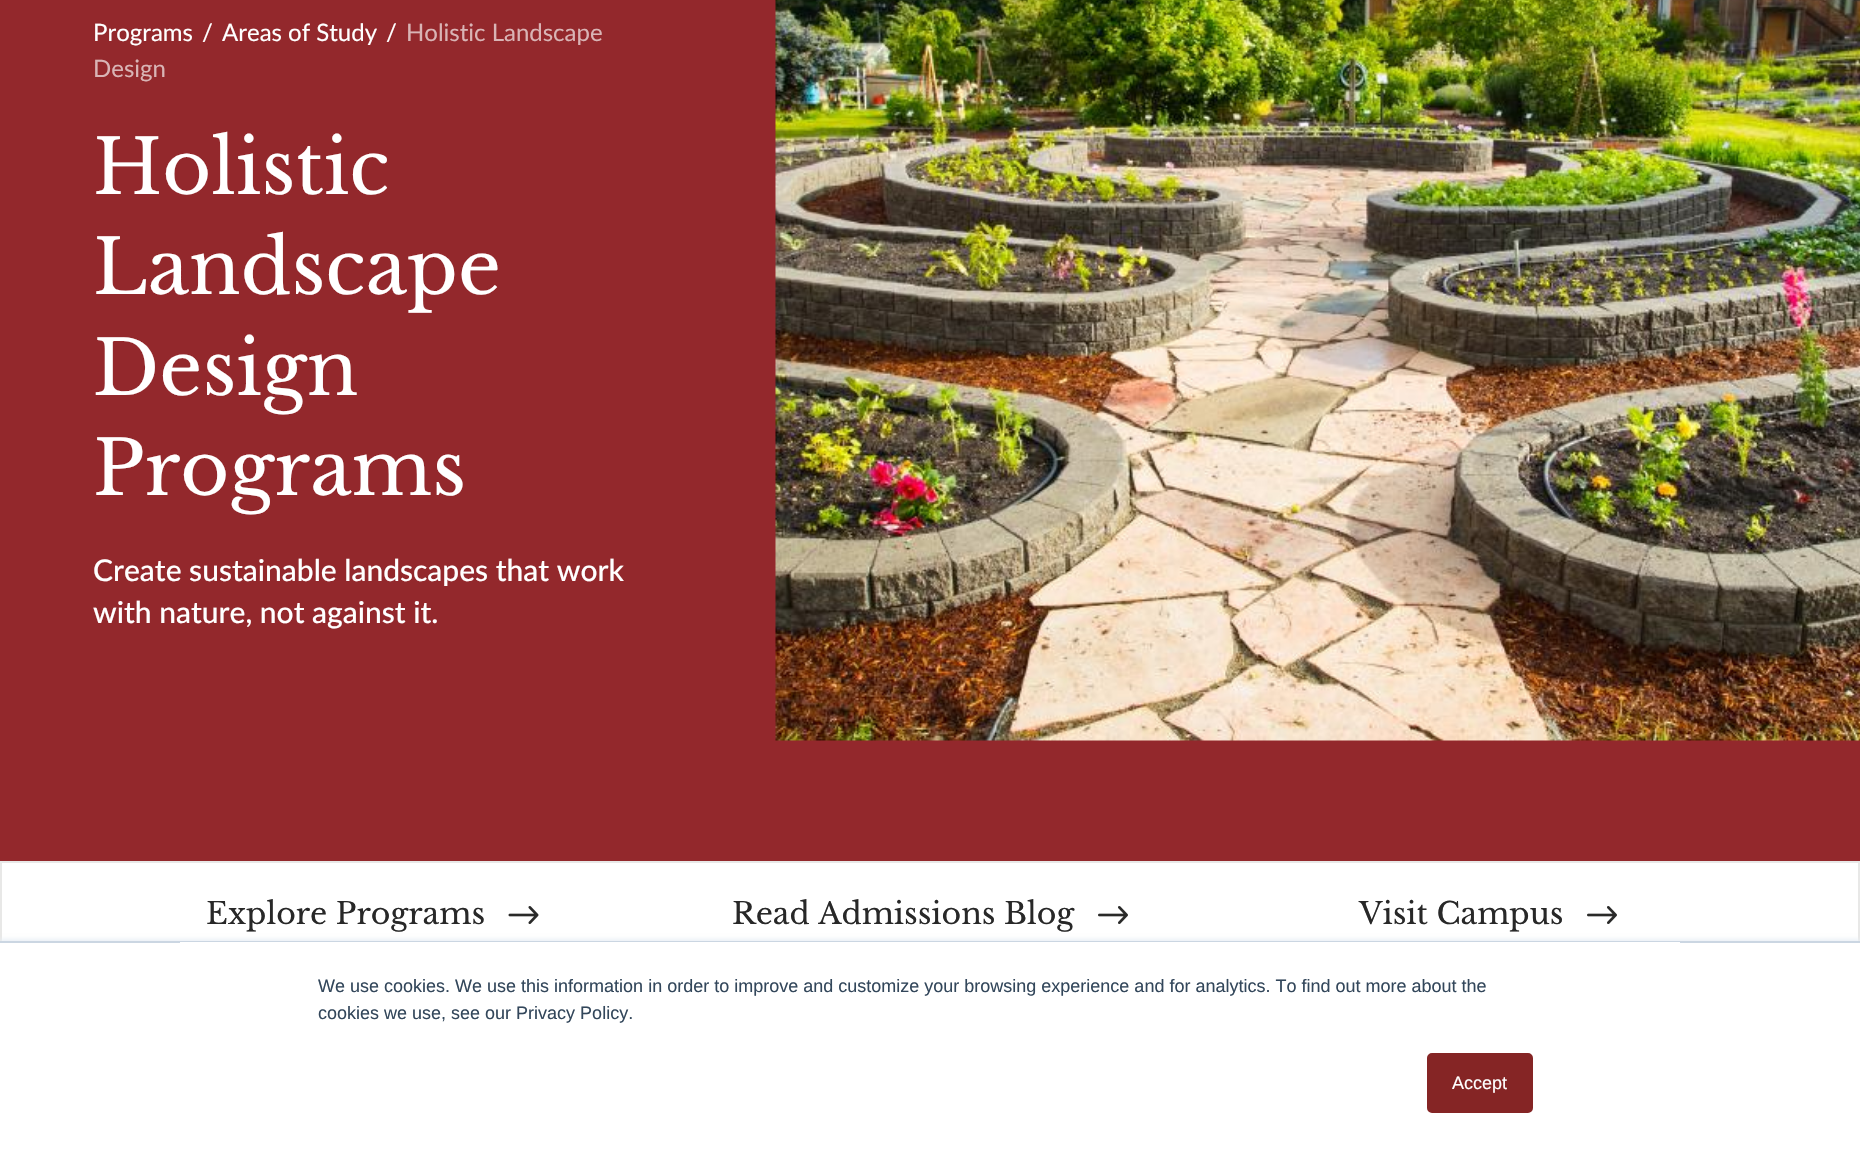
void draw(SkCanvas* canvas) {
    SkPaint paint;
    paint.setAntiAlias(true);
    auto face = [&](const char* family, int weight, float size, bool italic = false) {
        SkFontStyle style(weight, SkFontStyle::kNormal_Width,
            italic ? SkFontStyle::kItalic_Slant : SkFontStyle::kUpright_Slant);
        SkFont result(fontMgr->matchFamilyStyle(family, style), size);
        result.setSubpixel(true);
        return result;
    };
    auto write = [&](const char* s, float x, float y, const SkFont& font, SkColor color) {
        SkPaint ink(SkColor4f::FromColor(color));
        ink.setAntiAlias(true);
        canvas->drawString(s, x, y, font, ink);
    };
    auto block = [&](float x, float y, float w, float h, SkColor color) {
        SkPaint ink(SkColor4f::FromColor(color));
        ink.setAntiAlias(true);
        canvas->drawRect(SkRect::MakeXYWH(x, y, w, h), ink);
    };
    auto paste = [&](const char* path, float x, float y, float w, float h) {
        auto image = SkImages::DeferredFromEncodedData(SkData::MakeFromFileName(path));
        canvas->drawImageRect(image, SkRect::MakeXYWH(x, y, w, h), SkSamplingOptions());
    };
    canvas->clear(SK_ColorWHITE);
    block(0, 0, 1860, 861, SkColorSetRGB(147, 40, 44));
    auto kFont1 = face("Lato", 400, 24);
    write("Programs", 93, 41, kFont1, SK_ColorWHITE);
    write("/", 202, 41, kFont1, SK_ColorWHITE);
    write("Areas of Study", 222, 41, kFont1, SK_ColorWHITE);
    write("/", 386, 41, kFont1, SK_ColorWHITE);
    write("Holistic Landscape", 406, 41, kFont1, SkColorSetRGB(217, 180, 181));
    write("Design", 93, 77, kFont1, SkColorSetRGB(217, 180, 181));
    auto kFont2 = face("Libre Baskerville", 400, 75);
    write("Holistic", 93, 194, kFont2, SK_ColorWHITE);
    write("Landscape", 93, 294, kFont2, SK_ColorWHITE);
    write("Design", 93, 395, kFont2, SK_ColorWHITE);
    write("Programs", 93, 495, kFont2, SK_ColorWHITE);
    auto kFont3 = face("Lato", 500, 30);
    write("Create sustainable landscapes that work", 93, 581, kFont3, SK_ColorWHITE);
    write("with nature, not against it.", 93, 623, kFont3, SK_ColorWHITE);
    paste("pic1.png", 775, 0, 1085, 741);
    paint.setStyle(SkPaint::kStroke_Style);
    paint.setStrokeWidth(2);
    paint.setColor(SkColorSetRGB(232, 232, 231));
    canvas->drawRect(SkRect::MakeXYWH(1, 862, 1858, 106), paint);
    auto kFont4 = face("Libre Baskerville", 400, 30);
    write("Explore Programs", 206, 924, kFont4, SkColorSetRGB(40, 40, 40));
    paste("pic2.png", 508, 906, 31, 18);
    write("Read Admissions Blog", 732, 924, kFont4, SkColorSetRGB(40, 40, 40));
    paste("pic3.png", 1098, 906, 30, 18);
    write("Visit Campus", 1359, 924, kFont4, SkColorSetRGB(40, 40, 40));
    paste("pic3.png", 1587, 906, 30, 18);
    paint.setStyle(SkPaint::kFill_Style);
    paint.setColor(SkColorSetRGB(234, 240, 246));
    paint.setMaskFilter(SkMaskFilter::MakeBlur(kNormal_SkBlurStyle, 2));
    canvas->drawRect(SkRect::MakeXYWH(0, 939, 1860, 212), paint);
    paint.setMaskFilter(nullptr);
    block(0, 943, 1860, 208, SK_ColorWHITE);
    block(0, 941, 1860, 2, SkColorSetRGB(203, 214, 226));
    block(180, 942, 1500, 1, SK_ColorWHITE);
    auto kFont5 = face("Liberation Sans", 400, 18);
    write("We use cookies. We use this information in order to improve and customize your browsing experience and for analytics. To find out more about the", 318, 992, kFont5, SkColorSetRGB(51, 71, 91));
    write("cookies we use, see our Privacy Policy.", 318, 1019, kFont5, SkColorSetRGB(51, 71, 91));
    paint.setColor(SkColorSetRGB(133, 37, 37));
    canvas->drawRoundRect(SkRect::MakeXYWH(1428, 1054, 104, 58), 4, 4, paint);
    paint.setStyle(SkPaint::kStroke_Style);
    canvas->drawRoundRect(SkRect::MakeXYWH(1428, 1054, 104, 58), 4, 4, paint);
    write("Accept", 1452, 1089, kFont5, SK_ColorWHITE);
}
